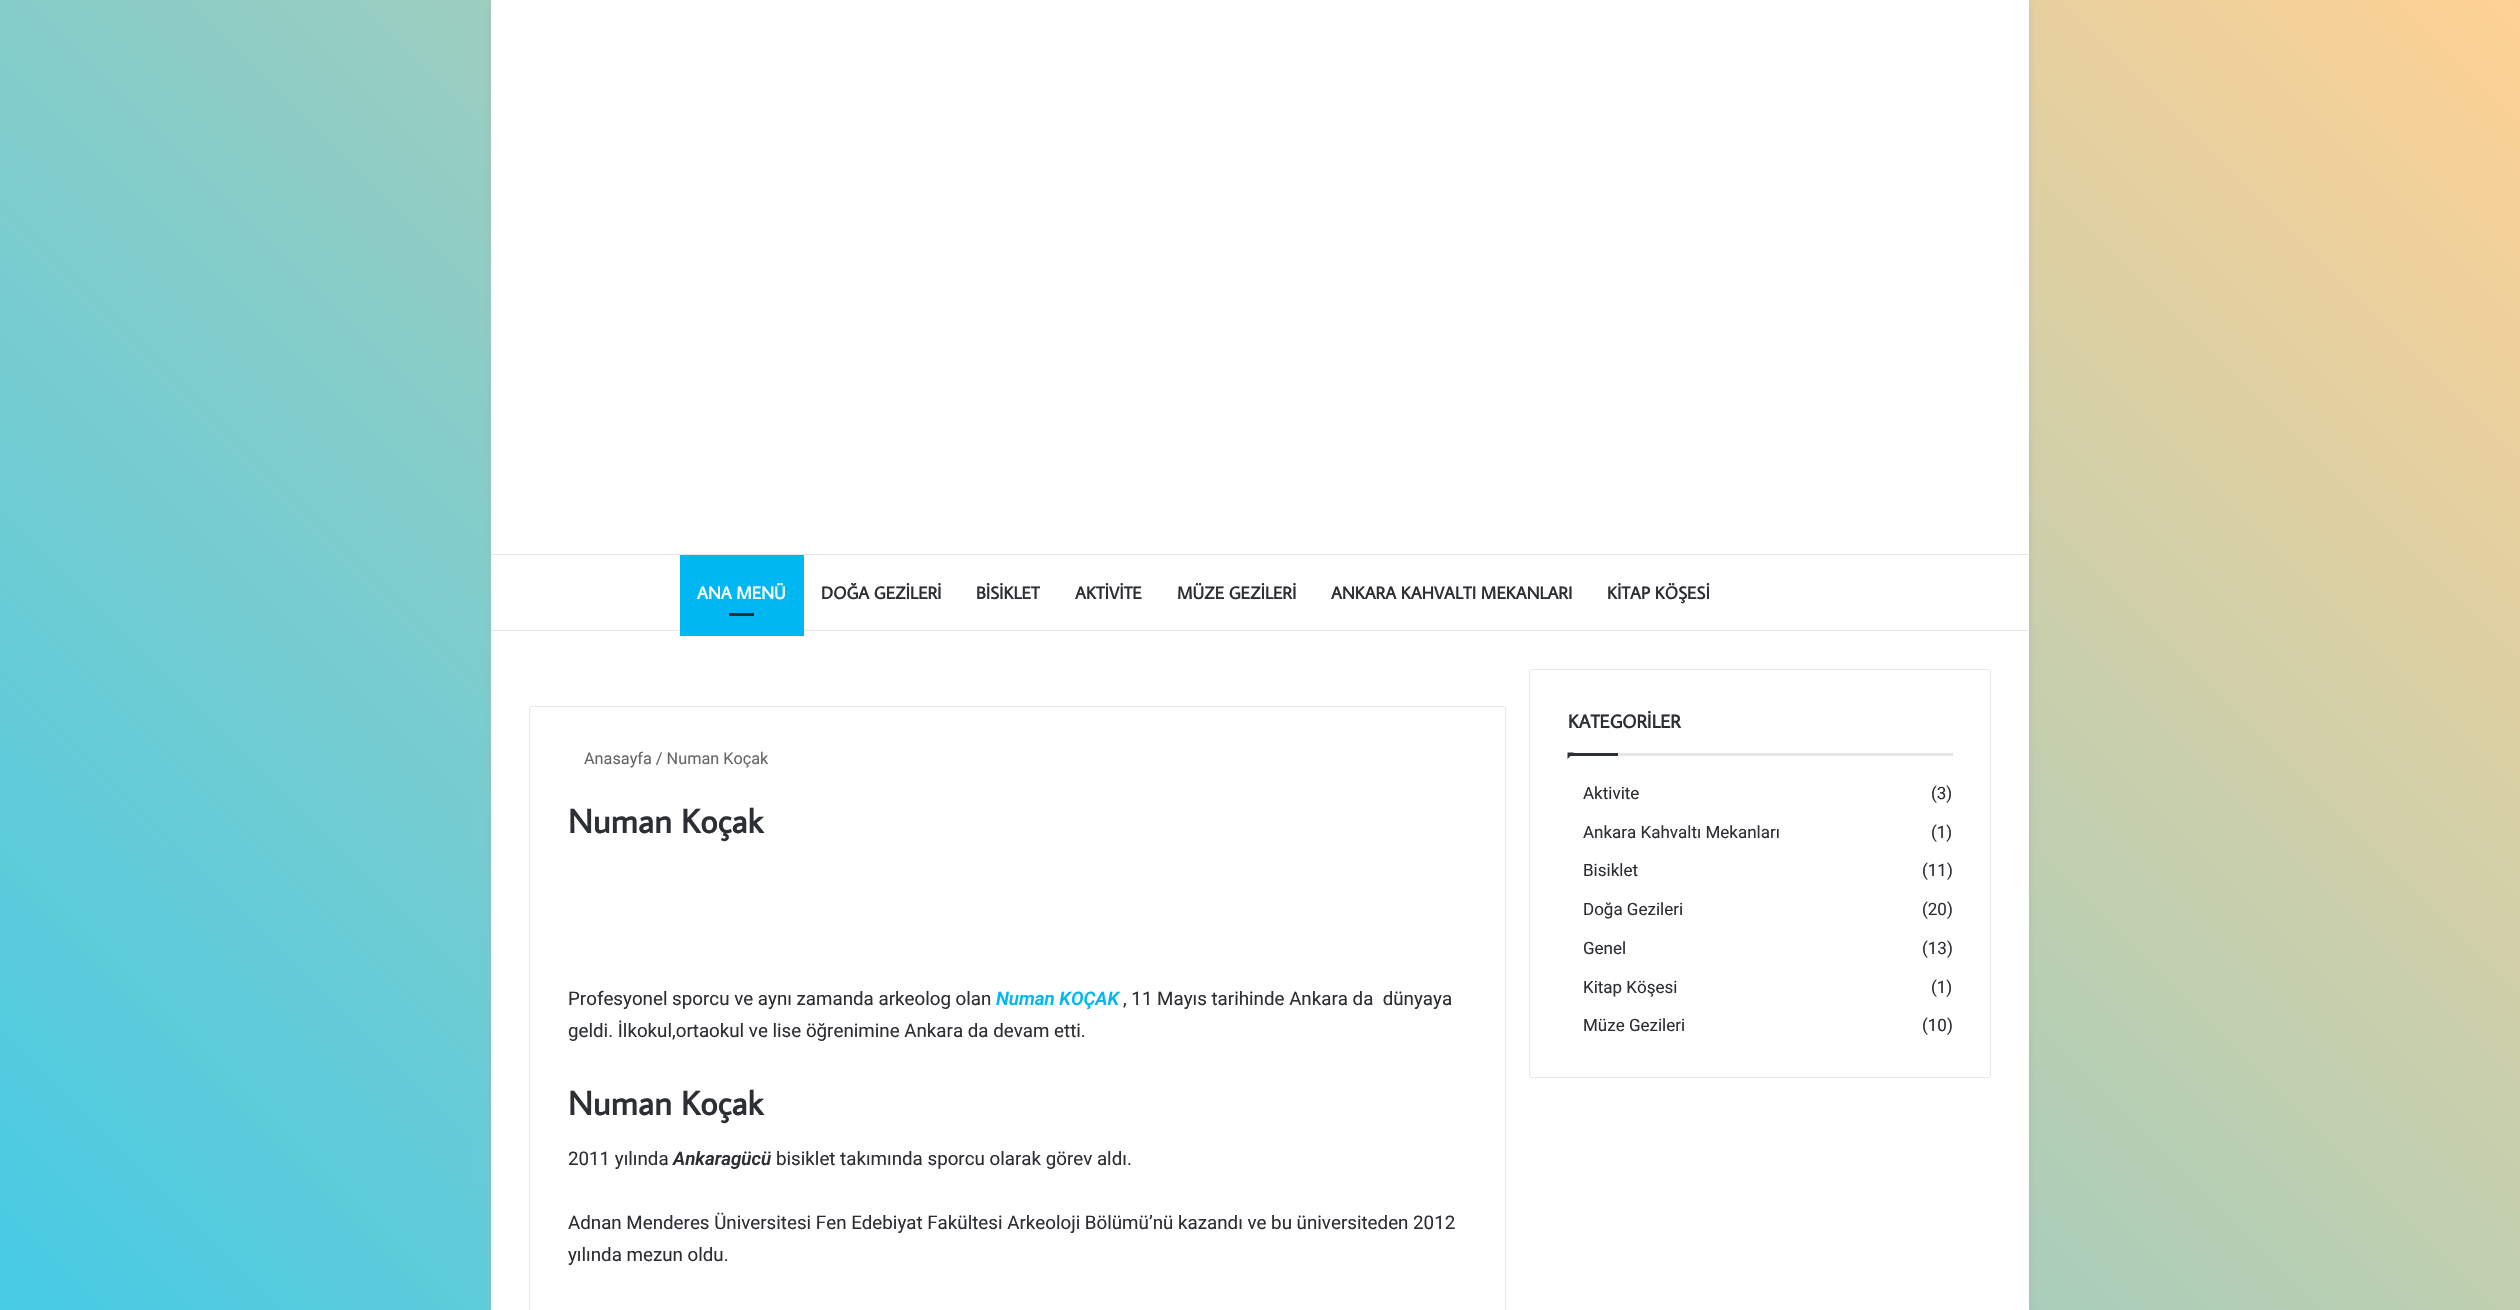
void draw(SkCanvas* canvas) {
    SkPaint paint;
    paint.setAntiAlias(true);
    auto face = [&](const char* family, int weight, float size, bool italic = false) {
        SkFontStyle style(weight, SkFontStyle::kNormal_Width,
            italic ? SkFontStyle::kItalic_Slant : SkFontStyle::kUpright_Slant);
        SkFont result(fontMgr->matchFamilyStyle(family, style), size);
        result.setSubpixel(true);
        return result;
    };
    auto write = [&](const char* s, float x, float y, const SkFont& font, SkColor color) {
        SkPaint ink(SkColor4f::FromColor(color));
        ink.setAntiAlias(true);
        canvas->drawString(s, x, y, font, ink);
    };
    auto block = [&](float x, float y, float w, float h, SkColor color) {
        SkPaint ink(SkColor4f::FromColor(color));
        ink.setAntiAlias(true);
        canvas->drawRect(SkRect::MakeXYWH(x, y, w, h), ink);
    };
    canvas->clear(SK_ColorWHITE);
    {
        const SkColor colors[] = {SkColorSetRGB(17, 201, 252), SkColorSetRGB(255, 209, 148)};
        const float stops[] = {0, 1};
        const SkPoint ends[] = {{28, 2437}, {2492, -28}};
        paint.setShader(SkGradientShader::MakeLinear(ends, colors, stops, 2, SkTileMode::kClamp));
        paint.setAlpha(255);
    }
    canvas->drawRect(SkRect::MakeXYWH(0, 0, 2520, 1310), paint);
    paint.setShader(nullptr);
    paint.setColor(SkColorSetARGB(128, 171, 171, 171));
    paint.setMaskFilter(SkMaskFilter::MakeBlur(kNormal_SkBlurStyle, 4.5f));
    canvas->drawRect(SkRect::MakeXYWH(491, 1, 1538, 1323), paint);
    paint.setMaskFilter(nullptr);
    block(491, 0, 1538, 1310, SK_ColorWHITE);
    block(491, 554, 1538, 1, SkColorSetRGB(230, 230, 230));
    block(491, 630, 1538, 1, SkColorSetRGB(230, 230, 230));
    block(680, 555, 124, 81, SkColorSetRGB(1, 183, 242));
    auto kFont1 = face("Average Sans", 700, 17.5f);
    write("ANA MENÜ", 697, 599, kFont1, SK_ColorWHITE);
    block(729, 613, 25, 3, SkColorSetRGB(44, 47, 52));
    write("DOĞA GEZİLERİ", 821, 599, kFont1, SkColorSetRGB(44, 47, 52));
    write("BİSİKLET", 976, 599, kFont1, SkColorSetRGB(44, 47, 52));
    write("AKTİVİTE", 1075, 599, kFont1, SkColorSetRGB(44, 47, 52));
    write("MÜZE GEZİLERİ", 1177, 599, kFont1, SkColorSetRGB(44, 47, 52));
    write("ANKARA KAHVALTI MEKANLARI", 1331, 599, kFont1, SkColorSetRGB(44, 47, 52));
    write("KİTAP KÖŞESİ", 1607, 599, kFont1, SkColorSetRGB(44, 47, 52));
    paint.setStyle(SkPaint::kStroke_Style);
    paint.setStrokeWidth(1);
    paint.setColor(SkColorSetRGB(230, 230, 230));
    canvas->drawRoundRect(SkRect::MakeXYWH(529.5f, 706.5f, 976, 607), 2, 2, paint);
    auto kFont2 = face("Roboto", 400, 16.25f);
    write("Anasayfa / Numan Koçak", 584, 764, kFont2, SkColorSetRGB(102, 102, 102));
    auto kFont3 = face("Average Sans", 700, 33.75f);
    write("Numan Koçak", 568, 833, kFont3, SkColorSetRGB(44, 47, 52));
    auto kFont4 = face("Roboto", 400, 18.75f);
    write("Profesyonel sporcu ve aynı zamanda arkeolog olan", 568, 1005, kFont4, SkColorSetRGB(44, 47, 52));
    auto kFont5 = face("Roboto", 600, 18.75f, true);
    write("Numan KOÇAK", 996, 1005, kFont5, SkColorSetRGB(1, 183, 242));
    write(", 11 Mayıs tarihinde Ankara da  dünyaya", 1123, 1005, kFont4, SkColorSetRGB(44, 47, 52));
    write("geldi. İlkokul,ortaokul ve lise öğrenimine Ankara da devam etti.", 568, 1037, kFont4, SkColorSetRGB(44, 47, 52));
    write("Numan Koçak", 568, 1115, kFont3, SkColorSetRGB(44, 47, 52));
    write("2011 yılında", 568, 1165, kFont4, SkColorSetRGB(44, 47, 52));
    write("Ankaragücü", 673, 1165, kFont5, SkColorSetRGB(44, 47, 52));
    write("bisiklet takımında sporcu olarak görev aldı.", 776, 1165, kFont4, SkColorSetRGB(44, 47, 52));
    write("Adnan Menderes Üniversitesi Fen Edebiyat Fakültesi Arkeoloji Bölümü’nü kazandı ve bu üniversiteden 2012", 568, 1229, kFont4, SkColorSetRGB(44, 47, 52));
    write("yılında mezun oldu.", 568, 1261, kFont4, SkColorSetRGB(44, 47, 52));
    canvas->drawRoundRect(SkRect::MakeXYWH(1529.5f, 669.5f, 461, 408), 2, 2, paint);
    block(1618, 753, 335, 3, SkColorSetRGB(230, 230, 230));
    auto kFont6 = face("Average Sans", 700, 18.75f);
    write("KATEGORİLER", 1568, 728, kFont6, SkColorSetRGB(44, 47, 52));
    paint.setStyle(SkPaint::kFill_Style);
    paint.setColor(SkColorSetRGB(44, 47, 52));
    canvas->drawPath(SkPathBuilder().moveTo(1567.5f, 752.5f).lineTo(1574, 752.5f).lineTo(1567.5f, 759).close().detach(), paint);
    block(1568, 753, 50, 3, SkColorSetRGB(44, 47, 52));
    auto kFont7 = face("Roboto", 400, 17);
    write("Aktivite", 1583, 799, kFont7, SkColorSetRGB(44, 47, 52));
    write("(3)", 1931, 799, kFont7, SkColorSetRGB(44, 47, 52));
    write("Ankara Kahvaltı Mekanları", 1583, 838, kFont7, SkColorSetRGB(44, 47, 52));
    write("(1)", 1931, 838, kFont7, SkColorSetRGB(44, 47, 52));
    write("Bisiklet", 1583, 876, kFont7, SkColorSetRGB(44, 47, 52));
    write("(11)", 1922, 876, kFont7, SkColorSetRGB(44, 47, 52));
    write("Doğa Gezileri", 1583, 915, kFont7, SkColorSetRGB(44, 47, 52));
    write("(20)", 1922, 915, kFont7, SkColorSetRGB(44, 47, 52));
    write("Genel", 1583, 954, kFont7, SkColorSetRGB(44, 47, 52));
    write("(13)", 1922, 954, kFont7, SkColorSetRGB(44, 47, 52));
    write("Kitap Köşesi", 1583, 993, kFont7, SkColorSetRGB(44, 47, 52));
    write("(1)", 1931, 993, kFont7, SkColorSetRGB(44, 47, 52));
    write("Müze Gezileri", 1583, 1031, kFont7, SkColorSetRGB(44, 47, 52));
    write("(10)", 1922, 1031, kFont7, SkColorSetRGB(44, 47, 52));
}
